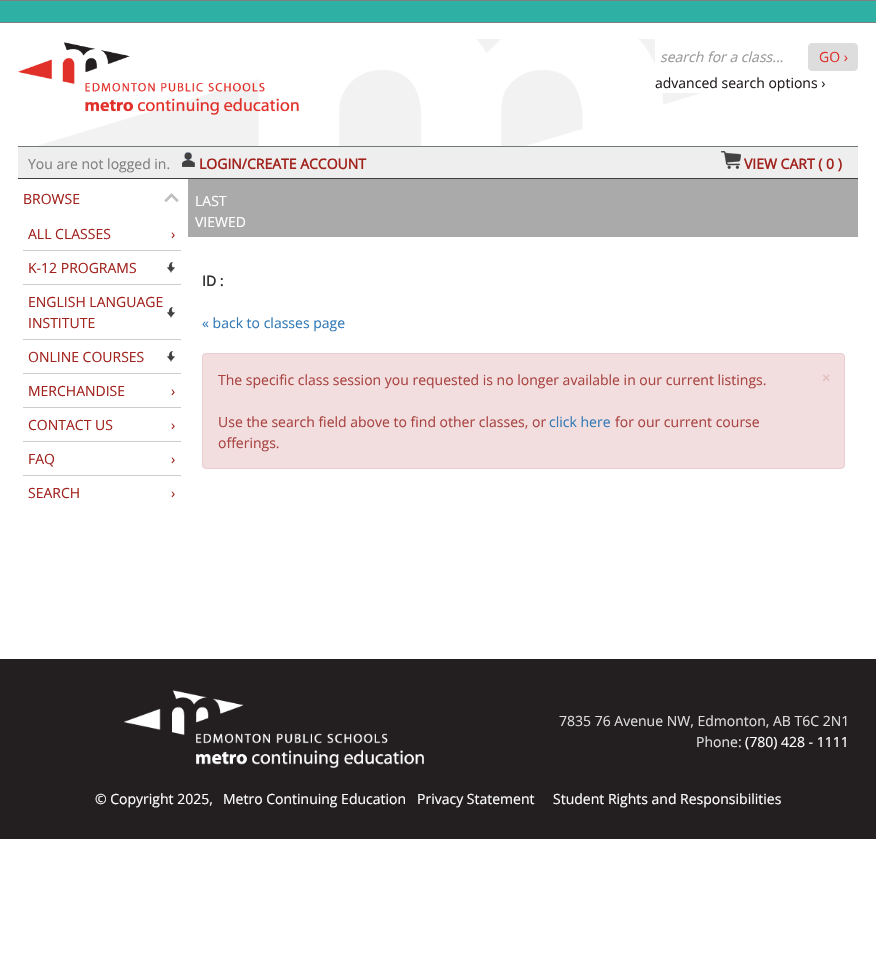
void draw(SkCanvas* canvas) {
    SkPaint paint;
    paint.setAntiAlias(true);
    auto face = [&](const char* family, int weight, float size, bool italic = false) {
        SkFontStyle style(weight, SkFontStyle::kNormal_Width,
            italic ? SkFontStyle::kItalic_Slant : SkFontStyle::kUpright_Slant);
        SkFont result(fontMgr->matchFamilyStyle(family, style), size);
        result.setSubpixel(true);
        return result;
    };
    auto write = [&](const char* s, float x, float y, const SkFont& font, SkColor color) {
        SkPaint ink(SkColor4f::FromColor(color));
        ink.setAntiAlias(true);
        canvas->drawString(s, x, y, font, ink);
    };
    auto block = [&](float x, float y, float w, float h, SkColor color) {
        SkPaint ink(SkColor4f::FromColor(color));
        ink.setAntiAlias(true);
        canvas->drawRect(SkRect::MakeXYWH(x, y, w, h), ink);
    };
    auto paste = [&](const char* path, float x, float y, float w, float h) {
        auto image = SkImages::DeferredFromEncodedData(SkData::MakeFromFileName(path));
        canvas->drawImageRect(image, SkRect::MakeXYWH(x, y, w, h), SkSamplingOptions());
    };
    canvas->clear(SK_ColorWHITE);
    block(0, 1, 876, 21, SkColorSetRGB(46, 176, 165));
    block(0, 0, 876, 1, SkColorSetRGB(128, 128, 128));
    block(0, 22, 876, 1, SkColorSetRGB(128, 128, 128));
    paste("pic1.png", 36, 39, 666, 107);
    paste("pic2.png", 18, 42, 281, 73);
    block(655, 39, 47, 54, SK_ColorWHITE);
    auto kFont1 = face("Open Sans", 400, 14, true);
    write("search for a class...", 660, 62, kFont1, SkColorSetRGB(153, 153, 153));
    paint.setColor(SkColorSetRGB(221, 221, 221));
    canvas->drawRoundRect(SkRect::MakeXYWH(808.5f, 43.5f, 49, 27), 3.5f, 3.5f, paint);
    paint.setStyle(SkPaint::kStroke_Style);
    paint.setStrokeWidth(1);
    canvas->drawRoundRect(SkRect::MakeXYWH(808.5f, 43.5f, 49, 27), 3.5f, 3.5f, paint);
    auto kFont2 = face("Open Sans", 400, 14);
    write("GO ›", 819, 62, kFont2, SkColorSetRGB(225, 47, 41));
    write("advanced search options ›", 655, 88, kFont2, SkColorSetRGB(35, 31, 32));
    block(18, 147, 840, 31, SkColorSetRGB(238, 238, 238));
    block(18, 146, 840, 1, SkColorSetRGB(112, 120, 124));
    block(18, 178, 840, 1, SkColorSetRGB(59, 65, 68));
    write("You are not logged in.", 28, 169, kFont2, SkColorSetRGB(128, 128, 128));
    paste("pic3.png", 182, 152, 13, 15);
    auto kFont3 = face("Open Sans", 700, 14);
    write("LOGIN/CREATE ACCOUNT", 199, 169, kFont3, SkColorSetRGB(161, 34, 29));
    paste("pic4.png", 721, 151, 20, 18);
    write("VIEW CART ( 0 )", 744, 169, kFont3, SkColorSetRGB(161, 34, 29));
    paste("pic5.png", 164, 193, 15, 9);
    write("BROWSE", 23, 204, kFont2, SkColorSetRGB(161, 34, 29));
    block(23, 250, 158, 1, SkColorSetRGB(204, 204, 204));
    write("ALL CLASSES", 28, 239, kFont2, SkColorSetRGB(161, 34, 29));
    write("›", 171, 239, kFont2, SkColorSetRGB(161, 34, 29));
    block(23, 284, 158, 1, SkColorSetRGB(204, 204, 204));
    paste("pic6.png", 167, 262, 8, 11);
    write("K-12 PROGRAMS", 28, 273, kFont2, SkColorSetRGB(161, 34, 29));
    block(23, 339, 158, 1, SkColorSetRGB(204, 204, 204));
    paste("pic6.png", 167, 307, 8, 11);
    write("ENGLISH LANGUAGE", 28, 307, kFont2, SkColorSetRGB(161, 34, 29));
    write("INSTITUTE", 28, 328, kFont2, SkColorSetRGB(161, 34, 29));
    block(23, 373, 158, 1, SkColorSetRGB(204, 204, 204));
    paste("pic6.png", 167, 351, 8, 11);
    write("ONLINE COURSES", 28, 362, kFont2, SkColorSetRGB(161, 34, 29));
    block(23, 407, 158, 1, SkColorSetRGB(204, 204, 204));
    write("MERCHANDISE", 28, 396, kFont2, SkColorSetRGB(161, 34, 29));
    write("›", 171, 396, kFont2, SkColorSetRGB(161, 34, 29));
    block(23, 441, 158, 1, SkColorSetRGB(204, 204, 204));
    write("CONTACT US", 28, 430, kFont2, SkColorSetRGB(161, 34, 29));
    write("›", 171, 430, kFont2, SkColorSetRGB(161, 34, 29));
    block(23, 475, 158, 1, SkColorSetRGB(204, 204, 204));
    write("FAQ", 28, 464, kFont2, SkColorSetRGB(161, 34, 29));
    write("›", 171, 464, kFont2, SkColorSetRGB(161, 34, 29));
    write("SEARCH", 28, 498, kFont2, SkColorSetRGB(161, 34, 29));
    write("›", 171, 498, kFont2, SkColorSetRGB(161, 34, 29));
    block(188, 179, 670, 58, SkColorSetRGB(170, 170, 170));
    write("LAST", 195, 206, kFont2, SK_ColorWHITE);
    write("VIEWED", 195, 227, kFont2, SK_ColorWHITE);
    write("ID :", 202, 286, kFont3, SkColorSetRGB(51, 51, 51));
    write("« back to classes page", 202, 328, kFont2, SkColorSetRGB(51, 122, 183));
    paint.setStyle(SkPaint::kFill_Style);
    paint.setColor(SkColorSetRGB(242, 222, 222));
    canvas->drawRoundRect(SkRect::MakeXYWH(202.5f, 353.5f, 642, 115), 3.5f, 3.5f, paint);
    paint.setStyle(SkPaint::kStroke_Style);
    paint.setColor(SkColorSetRGB(235, 204, 209));
    canvas->drawRoundRect(SkRect::MakeXYWH(202.5f, 353.5f, 642, 115), 3.5f, 3.5f, paint);
    write("The specific class session you requested is no longer available in our current listings.", 218, 385, kFont2, SkColorSetRGB(169, 68, 66));
    write("×", 822, 383, kFont3, SkColorSetRGB(227, 191, 191));
    write("Use the search field above to find other classes, or", 218, 427, kFont2, SkColorSetRGB(169, 68, 66));
    write("click here", 549, 427, kFont2, SkColorSetRGB(51, 122, 183));
    write("for our current course", 615, 427, kFont2, SkColorSetRGB(169, 68, 66));
    write("offerings.", 218, 448, kFont2, SkColorSetRGB(169, 68, 66));
    block(0, 659, 876, 180, SkColorSetRGB(35, 31, 32));
    paste("pic7.png", 124, 690, 300, 78);
    write("7835 76 Avenue NW, Edmonton, AB T6C 2N1", 559, 726, kFont2, SkColorSetRGB(221, 221, 221));
    write("Phone:", 696, 747, kFont2, SkColorSetRGB(221, 221, 221));
    write("(780) 428 - 1111", 745, 747, kFont2, SK_ColorWHITE);
    write("© Copyright 2025,", 95, 804, kFont2, SK_ColorWHITE);
    write("Metro Continuing Education", 223, 804, kFont2, SK_ColorWHITE);
    write("Privacy Statement", 417, 804, kFont2, SK_ColorWHITE);
    write("Student Rights and Responsibilities", 553, 804, kFont2, SK_ColorWHITE);
}
